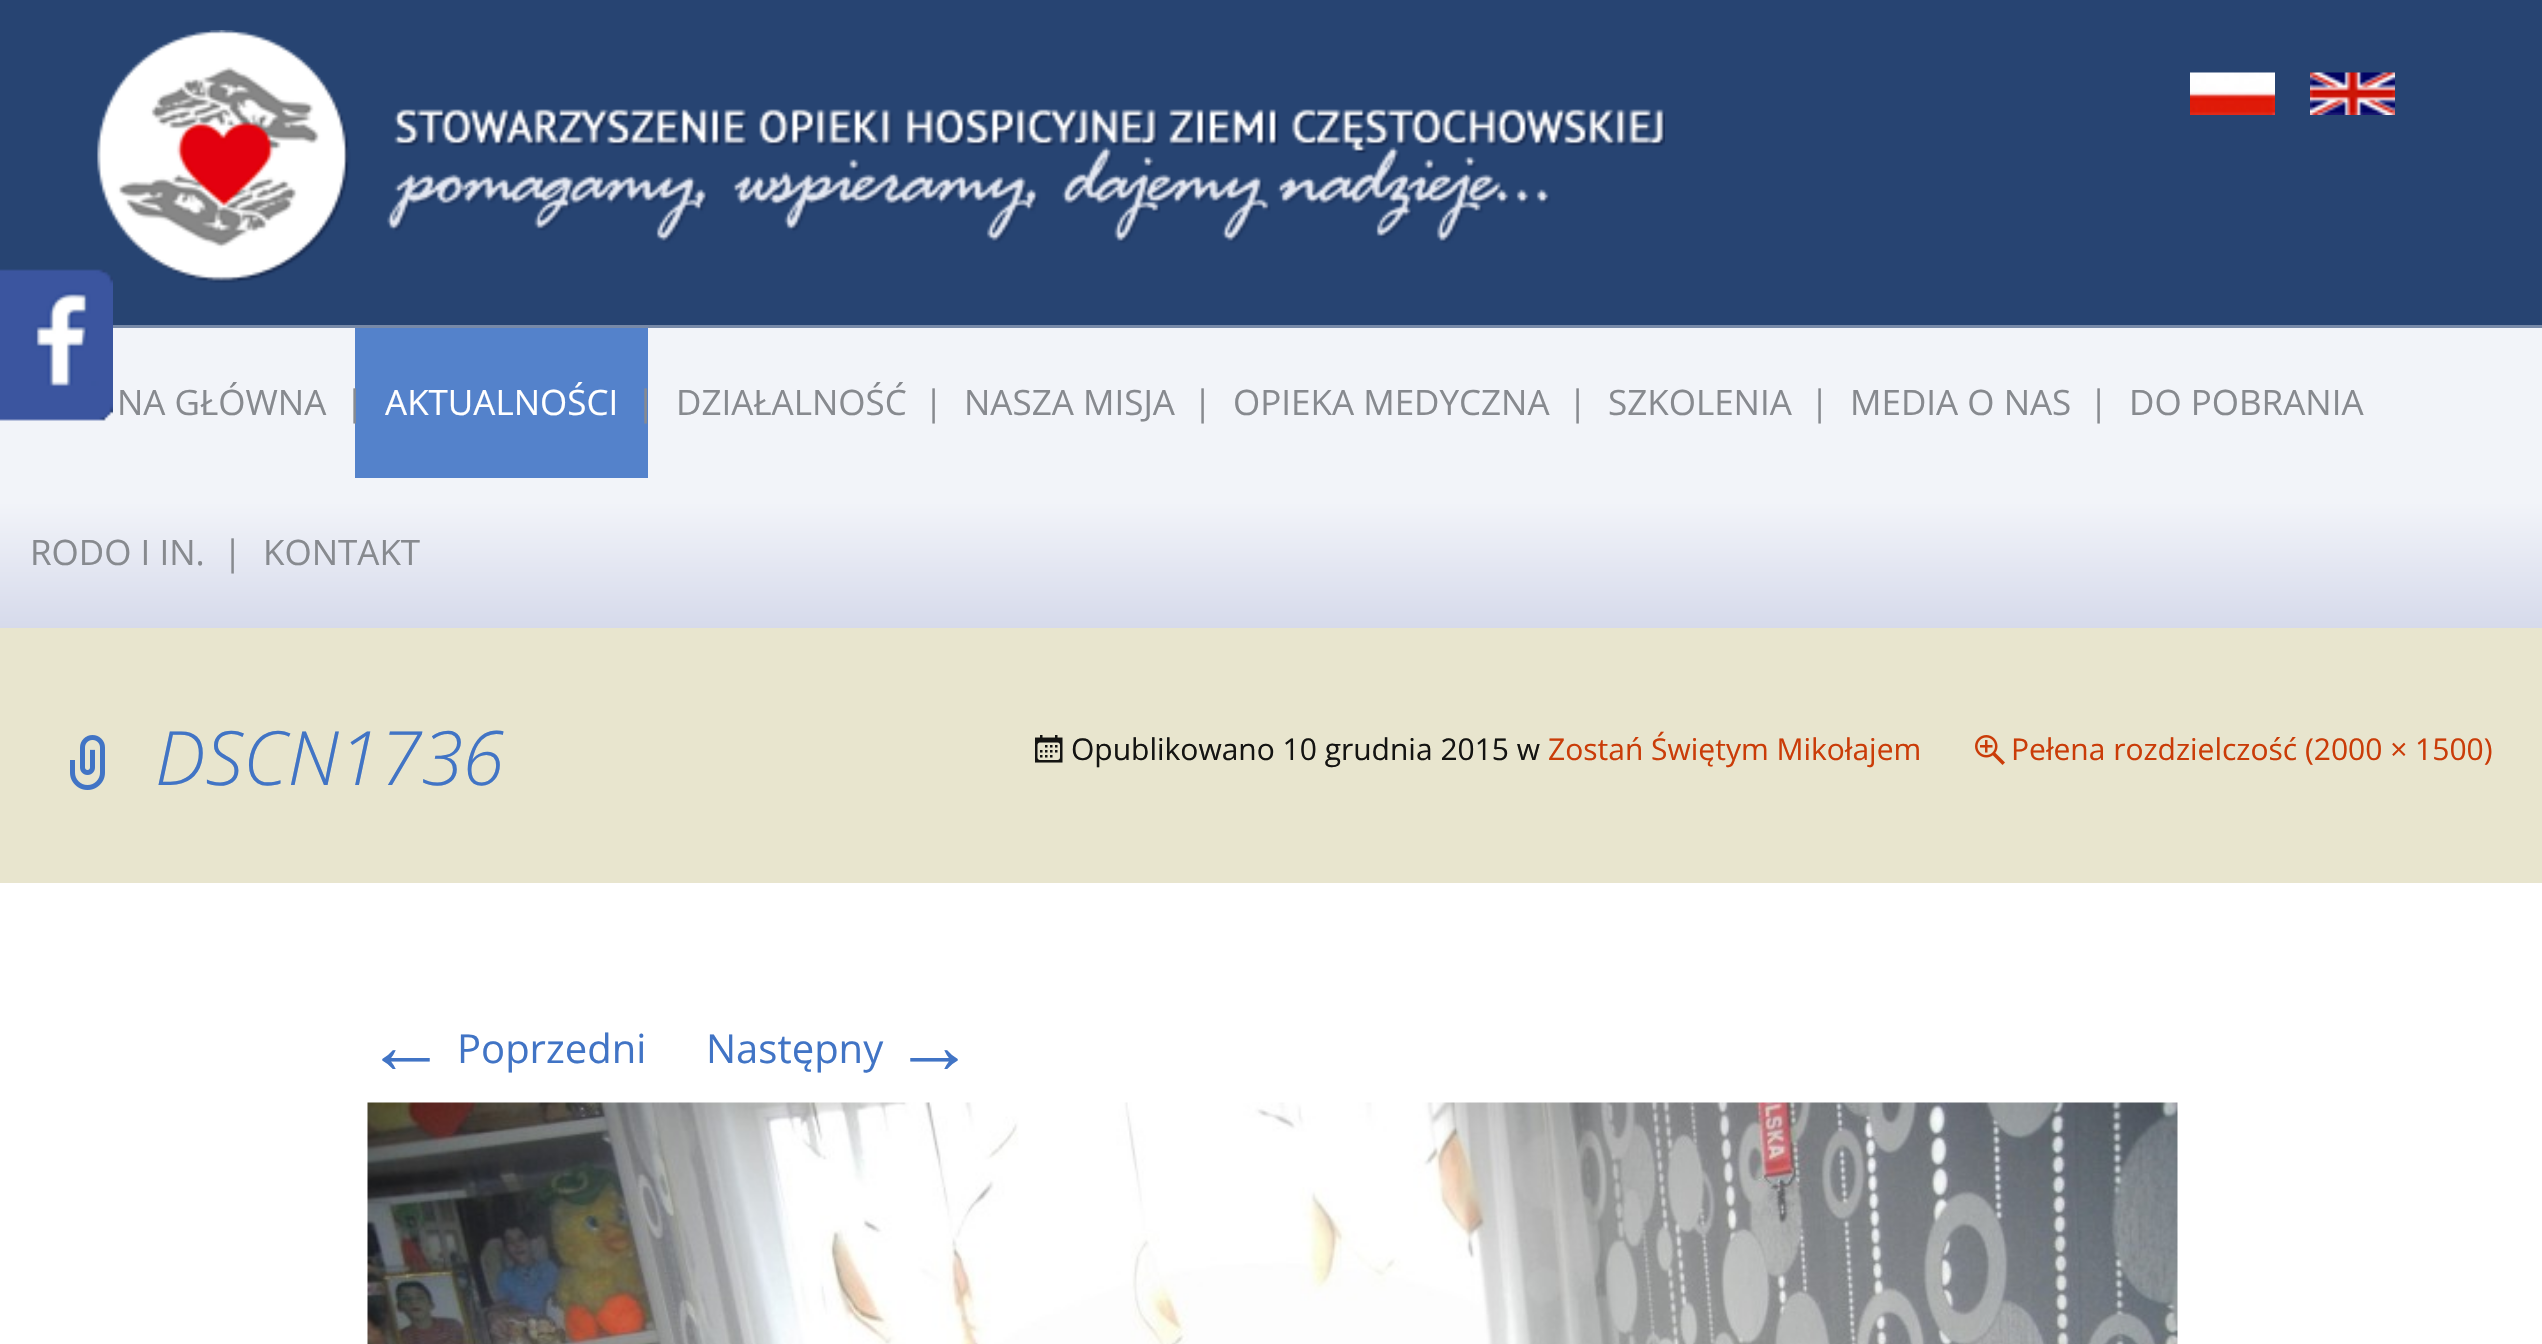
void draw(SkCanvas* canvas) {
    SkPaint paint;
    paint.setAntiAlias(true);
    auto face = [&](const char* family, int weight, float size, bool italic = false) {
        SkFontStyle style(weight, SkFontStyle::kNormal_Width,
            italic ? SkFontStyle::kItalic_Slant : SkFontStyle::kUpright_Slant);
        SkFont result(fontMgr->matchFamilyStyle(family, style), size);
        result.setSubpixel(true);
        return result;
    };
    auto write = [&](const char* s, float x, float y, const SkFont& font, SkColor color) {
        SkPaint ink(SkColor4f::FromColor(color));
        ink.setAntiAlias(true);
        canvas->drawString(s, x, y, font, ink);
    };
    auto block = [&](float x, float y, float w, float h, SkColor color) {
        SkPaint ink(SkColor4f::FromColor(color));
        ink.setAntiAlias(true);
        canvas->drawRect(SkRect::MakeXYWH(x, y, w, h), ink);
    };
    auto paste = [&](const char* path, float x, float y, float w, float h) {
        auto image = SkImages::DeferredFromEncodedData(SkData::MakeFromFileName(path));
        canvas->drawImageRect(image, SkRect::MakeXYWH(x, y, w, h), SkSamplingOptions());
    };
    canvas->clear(SK_ColorWHITE);
    block(0, 0, 2542, 325, SkColorSetRGB(39, 68, 114));
    paste("pic2.png", 97, 30, 1568, 253);
    {
        const SkColor colors[] = {SkColorSetRGB(242, 244, 249), SkColorSetRGB(214, 218, 235)};
        const float stops[] = {0.58f, 1};
        const SkPoint ends[] = {{1271, 327}, {1271, 628}};
        paint.setShader(SkGradientShader::MakeLinear(ends, colors, stops, 2, SkTileMode::kClamp));
        paint.setAlpha(255);
    }
    canvas->drawRect(SkRect::MakeXYWH(0, 328, 2542, 300), paint);
    paste("pic1.png", 0, 269, 113, 152);
    paste("pic3.png", 2190, 72, 85, 43);
    paste("pic4.png", 2310, 72, 85, 43);
    block(113, 325, 2429, 3, SkColorSetRGB(120, 138, 168));
    auto kFont1 = face("Open Sans", 400, 35);
    write("NA GŁÓWNA", 117, 415, kFont1, SkColorSetRGB(135, 138, 143));
    block(355, 328, 293, 150, SkColorSetRGB(84, 130, 203));
    write("|", 345, 415, kFont1, SkColorSetRGB(135, 138, 143));
    write("AKTUALNOŚCI", 385, 415, kFont1, SK_ColorWHITE);
    write("|", 636, 415, kFont1, SkColorSetRGB(135, 138, 143));
    write("DZIAŁALNOŚĆ", 676, 415, kFont1, SkColorSetRGB(135, 138, 143));
    write("|", 924, 415, kFont1, SkColorSetRGB(135, 138, 143));
    write("NASZA MISJA", 964, 415, kFont1, SkColorSetRGB(135, 138, 143));
    write("|", 1193, 415, kFont1, SkColorSetRGB(135, 138, 143));
    write("OPIEKA MEDYCZNA", 1233, 415, kFont1, SkColorSetRGB(135, 138, 143));
    write("|", 1568, 415, kFont1, SkColorSetRGB(135, 138, 143));
    write("SZKOLENIA", 1608, 415, kFont1, SkColorSetRGB(135, 138, 143));
    write("|", 1810, 415, kFont1, SkColorSetRGB(135, 138, 143));
    write("MEDIA O NAS", 1850, 415, kFont1, SkColorSetRGB(135, 138, 143));
    write("|", 2089, 415, kFont1, SkColorSetRGB(135, 138, 143));
    write("DO POBRANIA", 2129, 415, kFont1, SkColorSetRGB(135, 138, 143));
    write("RODO I IN.", 30, 565, kFont1, SkColorSetRGB(135, 138, 143));
    write("|", 223, 565, kFont1, SkColorSetRGB(135, 138, 143));
    write("KONTAKT", 263, 565, kFont1, SkColorSetRGB(135, 138, 143));
    block(0, 628, 2542, 255, SkColorSetRGB(232, 229, 206));
    paste("pic5.png", 70, 735, 35, 55);
    auto kFont2 = face("Open Sans", 300, 75, true);
    write("DSCN1736", 155, 785, kFont2, SkColorSetRGB(65, 116, 197));
    paste("pic6.png", 1035, 735, 28, 28);
    auto kFont3 = face("Open Sans", 400, 30);
    write("Opublikowano 10 grudnia 2015 w", 1071, 760, kFont3, SkColorSetRGB(20, 20, 18));
    write("Zostań Świętym Mikołajem", 1548, 760, kFont3, SkColorSetRGB(202, 60, 8));
    paste("pic7.png", 1975, 735, 30, 30);
    write("Pełena rozdzielczość (2000 × 1500)", 2011, 760, kFont3, SkColorSetRGB(202, 60, 8));
    auto kFont4 = face("Liberation Sans", 400, 80);
    write("←", 366, 1073, kFont4, SkColorSetRGB(65, 116, 197));
    auto kFont5 = face("Open Sans", 400, 40);
    write("Poprzedni", 457, 1063, kFont5, SkColorSetRGB(65, 116, 197));
    write("Następny", 706, 1063, kFont5, SkColorSetRGB(65, 116, 197));
    write("→", 894, 1073, kFont4, SkColorSetRGB(65, 116, 197));
    paste("pic8.png", 367, 1102, 1811, 242);
}
